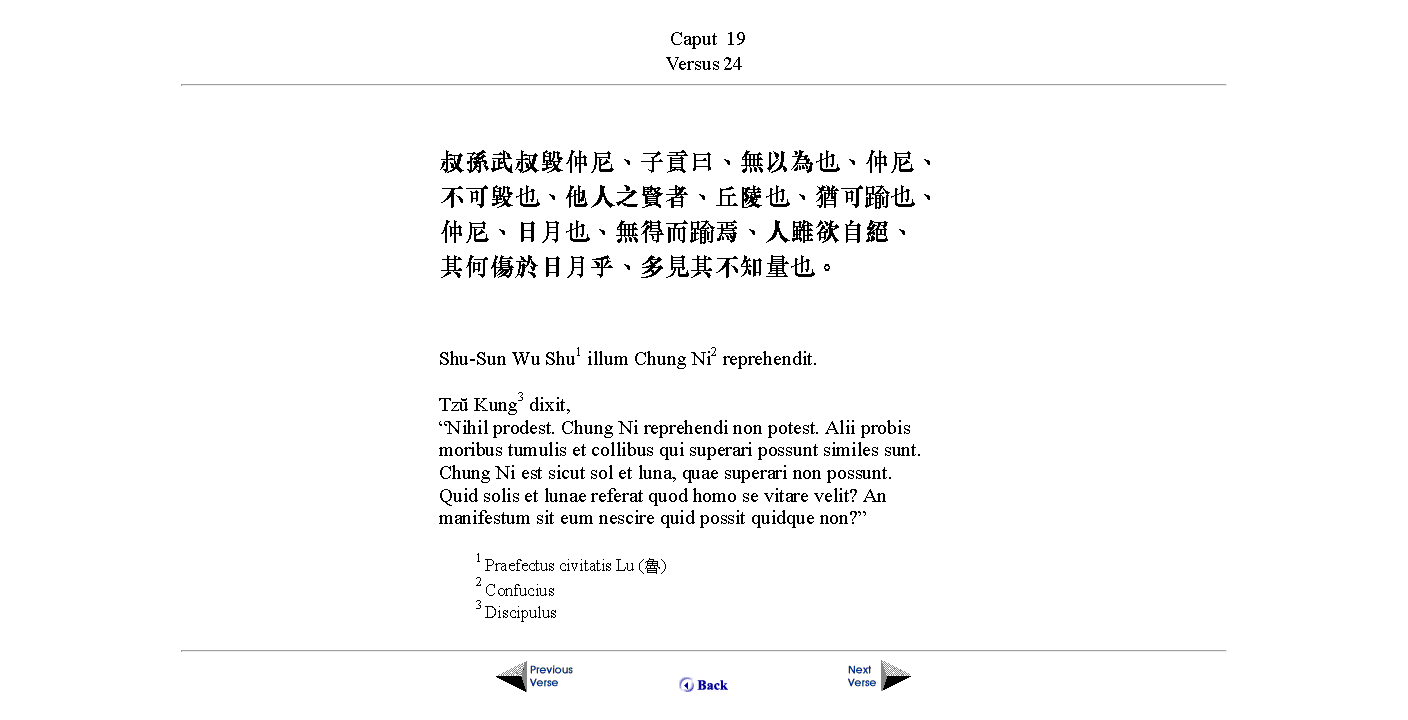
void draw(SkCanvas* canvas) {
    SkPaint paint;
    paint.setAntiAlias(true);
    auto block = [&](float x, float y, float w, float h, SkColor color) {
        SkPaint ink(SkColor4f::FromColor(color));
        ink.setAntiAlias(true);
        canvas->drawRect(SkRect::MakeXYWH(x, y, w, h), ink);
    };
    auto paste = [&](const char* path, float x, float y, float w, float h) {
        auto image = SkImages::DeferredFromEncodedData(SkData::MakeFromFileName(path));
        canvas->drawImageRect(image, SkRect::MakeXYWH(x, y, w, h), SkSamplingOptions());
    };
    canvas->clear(SK_ColorWHITE);
    paste("pic1.png", 671, 32, 74, 17);
    paste("pic2.png", 666, 57, 76, 13);
    block(181, 84, 1046, 1, SkColorSetRGB(159, 159, 159));
    block(1226, 84, 1, 2, SkColorSetRGB(238, 238, 238));
    block(181, 85, 1046, 1, SkColorSetRGB(238, 238, 238));
    block(181, 84, 1, 2, SkColorSetRGB(159, 159, 159));
    paste("pic3.png", 440, 150, 490, 128);
    paste("pic4.png", 439, 347, 481, 275);
    block(181, 650, 1046, 1, SkColorSetRGB(159, 159, 159));
    block(1226, 650, 1, 2, SkColorSetRGB(238, 238, 238));
    block(181, 651, 1046, 1, SkColorSetRGB(238, 238, 238));
    block(181, 650, 1, 2, SkColorSetRGB(159, 159, 159));
    paste("pic5.png", 496, 661, 77, 31);
    paste("pic6.png", 679, 677, 49, 15);
    paste("pic7.png", 848, 660, 63, 31);
}
